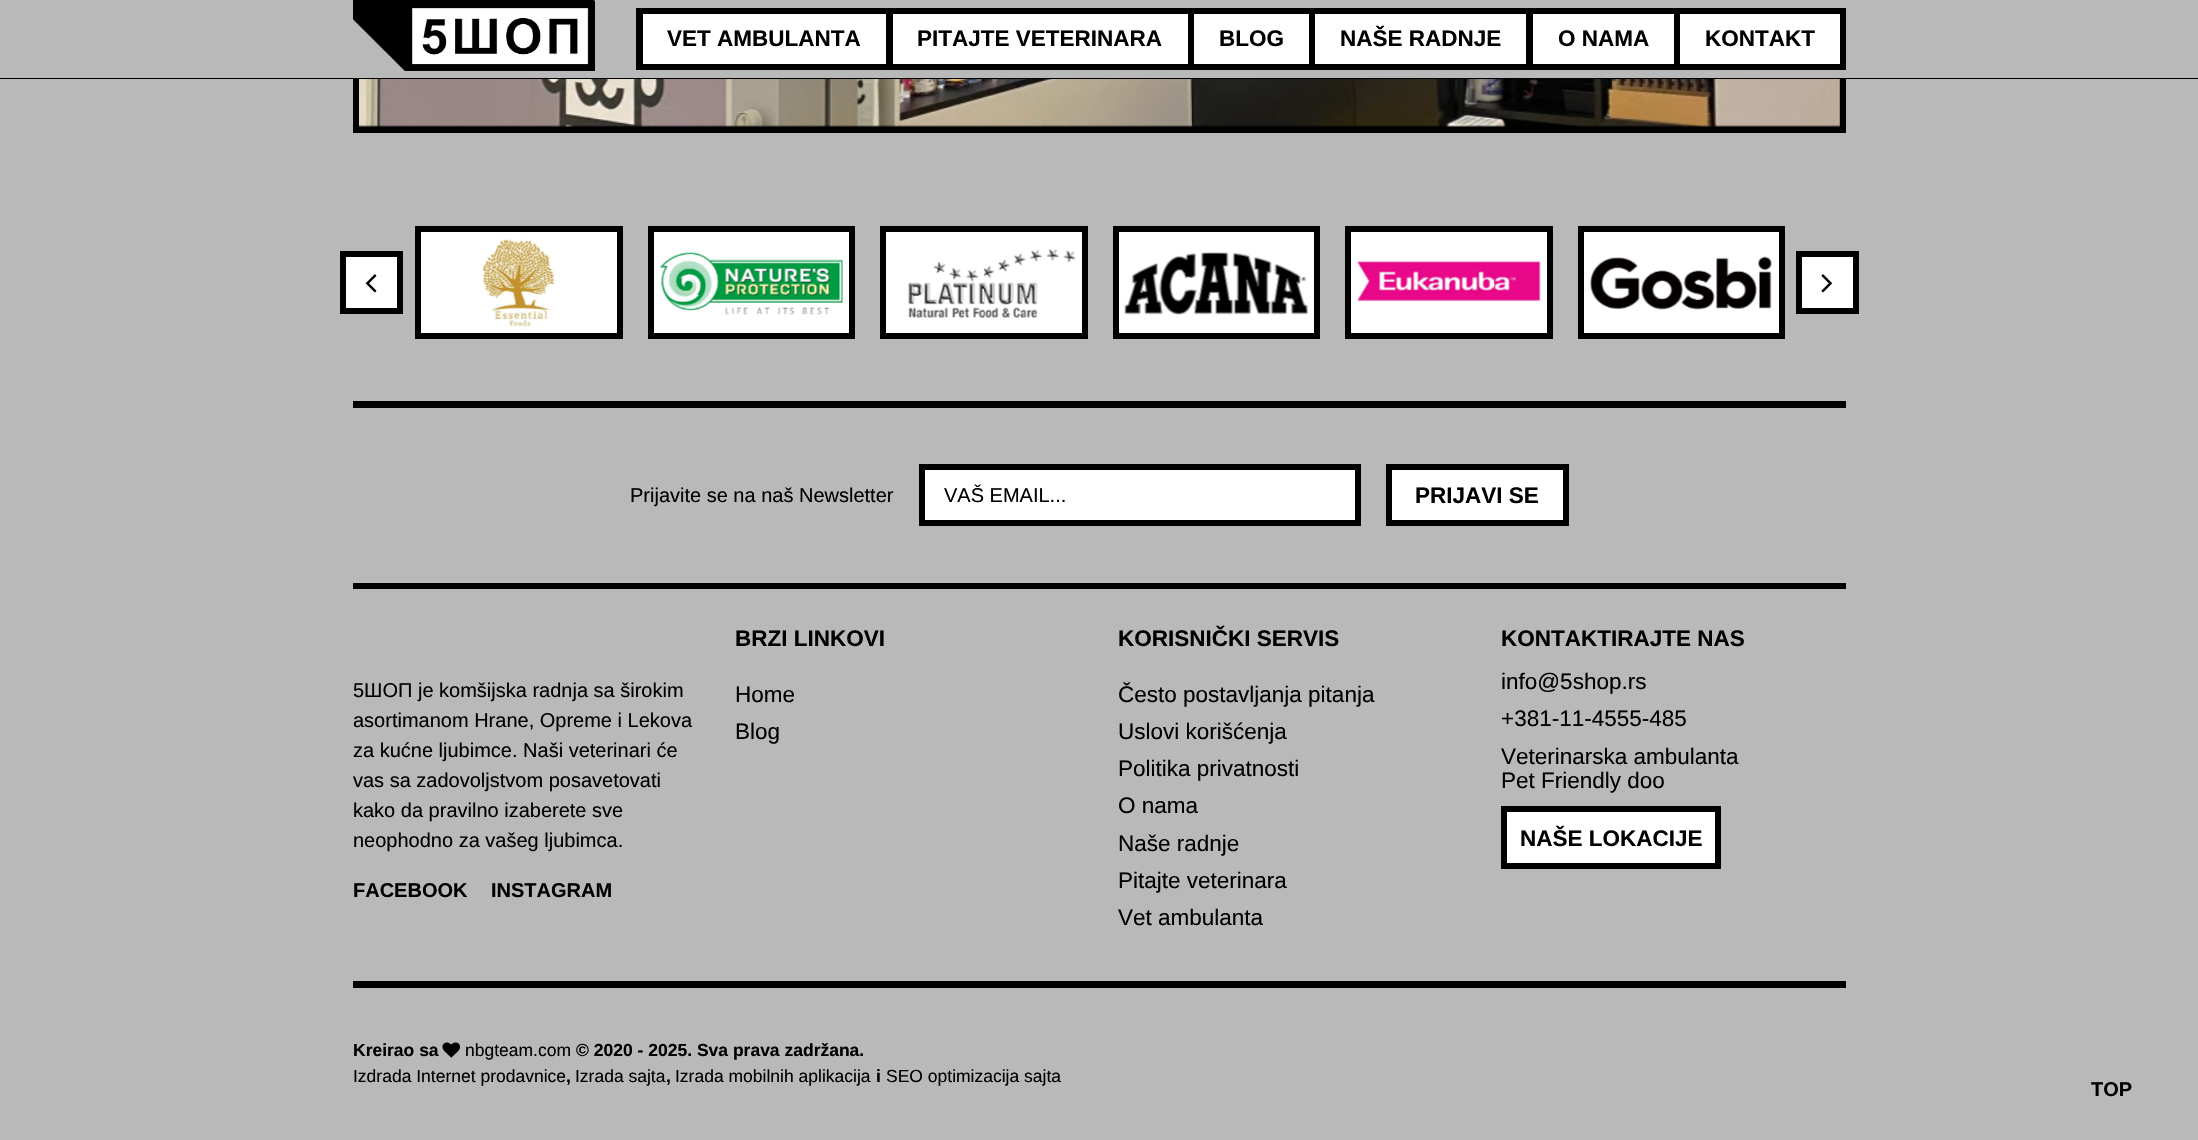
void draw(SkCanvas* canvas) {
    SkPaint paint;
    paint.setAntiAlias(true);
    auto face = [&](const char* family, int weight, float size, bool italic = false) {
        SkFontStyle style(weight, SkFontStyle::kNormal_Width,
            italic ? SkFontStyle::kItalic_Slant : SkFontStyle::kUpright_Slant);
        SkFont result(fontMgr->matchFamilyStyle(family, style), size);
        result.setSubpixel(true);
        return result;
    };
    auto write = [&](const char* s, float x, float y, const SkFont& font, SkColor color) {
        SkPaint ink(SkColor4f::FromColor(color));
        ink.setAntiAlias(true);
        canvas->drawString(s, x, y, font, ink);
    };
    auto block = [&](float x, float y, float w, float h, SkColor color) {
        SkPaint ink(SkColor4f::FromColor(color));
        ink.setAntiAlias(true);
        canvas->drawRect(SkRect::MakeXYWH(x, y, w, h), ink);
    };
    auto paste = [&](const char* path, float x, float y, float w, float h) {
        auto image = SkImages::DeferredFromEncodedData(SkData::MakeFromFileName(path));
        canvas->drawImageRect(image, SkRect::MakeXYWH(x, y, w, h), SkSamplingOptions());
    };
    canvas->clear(SkColorSetRGB(185, 185, 185));
    block(0, 78, 2198, 1, SK_ColorBLACK);
    paste("pic1.png", 353, 0, 242, 71);
    block(643, 14, 243, 50, SK_ColorWHITE);
    block(636, 8, 1038, 6, SK_ColorBLACK);
    block(636, 64, 1038, 6, SK_ColorBLACK);
    block(636, 8, 7, 62, SK_ColorBLACK);
    auto kFont1 = face("Liberation Sans", 700, 22.5f);
    write("VET AMBULANTA", 667, 46, kFont1, SK_ColorBLACK);
    block(893, 14, 295, 50, SK_ColorWHITE);
    block(886, 8, 7, 62, SK_ColorBLACK);
    write("PITAJTE VETERINARA", 917, 46, kFont1, SK_ColorBLACK);
    block(1194, 14, 115, 50, SK_ColorWHITE);
    block(1188, 8, 6, 62, SK_ColorBLACK);
    write("BLOG", 1219, 46, kFont1, SK_ColorBLACK);
    block(1315, 14, 211, 50, SK_ColorWHITE);
    block(1309, 8, 6, 62, SK_ColorBLACK);
    write("NAŠE RADNJE", 1340, 46, kFont1, SK_ColorBLACK);
    block(1533, 14, 141, 50, SK_ColorWHITE);
    block(1526, 8, 7, 62, SK_ColorBLACK);
    write("O NAMA", 1558, 46, kFont1, SK_ColorBLACK);
    paint.setColor(SK_ColorWHITE);
    canvas->drawRect(SkRect::MakeXYWH(1677, 11, 166, 56), paint);
    paint.setStyle(SkPaint::kStroke_Style);
    paint.setStrokeWidth(6);
    paint.setColor(SK_ColorBLACK);
    canvas->drawRect(SkRect::MakeXYWH(1677, 11, 166, 56), paint);
    write("KONTAKT", 1705, 46, kFont1, SK_ColorBLACK);
    block(353, 79, 1493, 54, SK_ColorBLACK);
    paste("pic2.png", 359, 79, 1481, 48);
    paint.setStyle(SkPaint::kFill_Style);
    paint.setColor(SK_ColorWHITE);
    canvas->drawRect(SkRect::MakeXYWH(343, 254, 57, 57), paint);
    paint.setStyle(SkPaint::kStroke_Style);
    paint.setColor(SK_ColorBLACK);
    canvas->drawRect(SkRect::MakeXYWH(343, 254, 57, 57), paint);
    paste("pic3.png", 365, 274, 12, 19);
    paint.setStyle(SkPaint::kFill_Style);
    paint.setColor(SK_ColorWHITE);
    canvas->drawRect(SkRect::MakeXYWH(418, 229, 202, 107), paint);
    paint.setStyle(SkPaint::kStroke_Style);
    paint.setColor(SK_ColorBLACK);
    canvas->drawRect(SkRect::MakeXYWH(418, 229, 202, 107), paint);
    paste("pic4.png", 482, 238, 74, 91);
    paint.setStyle(SkPaint::kFill_Style);
    paint.setColor(SK_ColorWHITE);
    canvas->drawRect(SkRect::MakeXYWH(651, 229, 201, 107), paint);
    paint.setStyle(SkPaint::kStroke_Style);
    paint.setColor(SK_ColorBLACK);
    canvas->drawRect(SkRect::MakeXYWH(651, 229, 201, 107), paint);
    paste("pic5.png", 659, 252, 184, 63);
    paint.setStyle(SkPaint::kFill_Style);
    paint.setColor(SK_ColorWHITE);
    canvas->drawRect(SkRect::MakeXYWH(883, 229, 202, 107), paint);
    paint.setStyle(SkPaint::kStroke_Style);
    paint.setColor(SK_ColorBLACK);
    canvas->drawRect(SkRect::MakeXYWH(883, 229, 202, 107), paint);
    paste("pic6.png", 908, 248, 168, 70);
    paint.setStyle(SkPaint::kFill_Style);
    paint.setColor(SK_ColorWHITE);
    canvas->drawRect(SkRect::MakeXYWH(1116, 229, 201, 107), paint);
    paint.setStyle(SkPaint::kStroke_Style);
    paint.setColor(SK_ColorBLACK);
    canvas->drawRect(SkRect::MakeXYWH(1116, 229, 201, 107), paint);
    paste("pic7.png", 1124, 252, 184, 63);
    paint.setStyle(SkPaint::kFill_Style);
    paint.setColor(SK_ColorWHITE);
    canvas->drawRect(SkRect::MakeXYWH(1348, 229, 202, 107), paint);
    paint.setStyle(SkPaint::kStroke_Style);
    paint.setColor(SK_ColorBLACK);
    canvas->drawRect(SkRect::MakeXYWH(1348, 229, 202, 107), paint);
    paste("pic8.png", 1357, 260, 184, 42);
    paint.setStyle(SkPaint::kFill_Style);
    paint.setColor(SK_ColorWHITE);
    canvas->drawRect(SkRect::MakeXYWH(1581, 229, 201, 107), paint);
    paint.setStyle(SkPaint::kStroke_Style);
    paint.setColor(SK_ColorBLACK);
    canvas->drawRect(SkRect::MakeXYWH(1581, 229, 201, 107), paint);
    paste("pic9.png", 1590, 256, 182, 54);
    paint.setStyle(SkPaint::kFill_Style);
    paint.setColor(SK_ColorWHITE);
    canvas->drawRect(SkRect::MakeXYWH(1799, 254, 57, 57), paint);
    paint.setStyle(SkPaint::kStroke_Style);
    paint.setColor(SK_ColorBLACK);
    canvas->drawRect(SkRect::MakeXYWH(1799, 254, 57, 57), paint);
    paste("pic10.png", 1821, 274, 11, 19);
    block(353, 401, 1493, 7, SK_ColorBLACK);
    block(353, 583, 1493, 6, SK_ColorBLACK);
    auto kFont2 = face("Liberation Sans", 400, 20);
    write("Prijavite se na naš Newsletter", 630, 502, kFont2, SK_ColorBLACK);
    paint.setStyle(SkPaint::kFill_Style);
    paint.setColor(SK_ColorWHITE);
    canvas->drawRect(SkRect::MakeXYWH(922, 467, 436, 56), paint);
    paint.setStyle(SkPaint::kStroke_Style);
    paint.setColor(SK_ColorBLACK);
    canvas->drawRect(SkRect::MakeXYWH(922, 467, 436, 56), paint);
    write("VAŠ EMAIL...", 944, 502, kFont2, SK_ColorBLACK);
    paint.setStyle(SkPaint::kFill_Style);
    paint.setColor(SK_ColorWHITE);
    canvas->drawRect(SkRect::MakeXYWH(1389, 467, 177, 56), paint);
    paint.setStyle(SkPaint::kStroke_Style);
    paint.setColor(SK_ColorBLACK);
    canvas->drawRect(SkRect::MakeXYWH(1389, 467, 177, 56), paint);
    write("PRIJAVI SE", 1415, 503, kFont1, SK_ColorBLACK);
    write("5ШОП je komšijska radnja sa širokim", 353, 697, kFont2, SK_ColorBLACK);
    write("asortimanom Hrane, Opreme i Lekova", 353, 727, kFont2, SK_ColorBLACK);
    write("za kućne ljubimce. Naši veterinari će", 353, 757, kFont2, SK_ColorBLACK);
    write("vas sa zadovoljstvom posavetovati", 353, 787, kFont2, SK_ColorBLACK);
    write("kako da pravilno izaberete sve", 353, 817, kFont2, SK_ColorBLACK);
    write("neophodno za vašeg ljubimca.", 353, 847, kFont2, SK_ColorBLACK);
    auto kFont3 = face("Liberation Sans", 700, 20);
    write("FACEBOOK", 353, 897, kFont3, SK_ColorBLACK);
    write("INSTAGRAM", 491, 897, kFont3, SK_ColorBLACK);
    write("BRZI LINKOVI", 735, 646, kFont1, SK_ColorBLACK);
    auto kFont4 = face("Liberation Sans", 400, 22.5f);
    write("Home", 735, 702, kFont4, SK_ColorBLACK);
    write("Blog", 735, 739, kFont4, SK_ColorBLACK);
    write("KORISNIČKI SERVIS", 1118, 646, kFont1, SK_ColorBLACK);
    write("Često postavljanja pitanja", 1118, 702, kFont4, SK_ColorBLACK);
    write("Uslovi korišćenja", 1118, 739, kFont4, SK_ColorBLACK);
    write("Politika privatnosti", 1118, 776, kFont4, SK_ColorBLACK);
    write("O nama", 1118, 813, kFont4, SK_ColorBLACK);
    write("Naše radnje", 1118, 851, kFont4, SK_ColorBLACK);
    write("Pitajte veterinara", 1118, 888, kFont4, SK_ColorBLACK);
    write("Vet ambulanta", 1118, 925, kFont4, SK_ColorBLACK);
    write("KONTAKTIRAJTE NAS", 1501, 646, kFont1, SK_ColorBLACK);
    write("info@5shop.rs", 1501, 689, kFont4, SK_ColorBLACK);
    write("+381-11-4555-485", 1501, 726, kFont4, SK_ColorBLACK);
    write("Veterinarska ambulanta", 1501, 764, kFont4, SK_ColorBLACK);
    write("Pet Friendly doo", 1501, 788, kFont4, SK_ColorBLACK);
    paint.setStyle(SkPaint::kFill_Style);
    paint.setColor(SK_ColorWHITE);
    canvas->drawRect(SkRect::MakeXYWH(1504, 809, 214, 57), paint);
    paint.setStyle(SkPaint::kStroke_Style);
    paint.setColor(SK_ColorBLACK);
    canvas->drawRect(SkRect::MakeXYWH(1504, 809, 214, 57), paint);
    write("NAŠE LOKACIJE", 1520, 846, kFont1, SK_ColorBLACK);
    block(353, 981, 1493, 7, SK_ColorBLACK);
    auto kFont5 = face("Liberation Sans", 700, 17.5f);
    write("Kreirao sa", 353, 1056, kFont5, SK_ColorBLACK);
    paste("pic11.png", 442, 1042, 18, 16);
    auto kFont6 = face("Liberation Sans", 400, 17.5f);
    write("nbgteam.com", 465, 1056, kFont6, SK_ColorBLACK);
    write("© 2020 - 2025. Sva prava zadržana.", 576, 1056, kFont5, SK_ColorBLACK);
    write("Izdrada Internet prodavnice", 353, 1082, kFont6, SK_ColorBLACK);
    write(",", 566, 1082, kFont5, SK_ColorBLACK);
    write("Izrada sajta", 575, 1082, kFont6, SK_ColorBLACK);
    write(",", 666, 1082, kFont5, SK_ColorBLACK);
    write("Izrada mobilnih aplikacija", 675, 1082, kFont6, SK_ColorBLACK);
    write("i", 876, 1082, kFont5, SK_ColorBLACK);
    write("SEO optimizacija sajta", 886, 1082, kFont6, SK_ColorBLACK);
    write("TOP", 2091, 1096, kFont3, SK_ColorBLACK);
}
